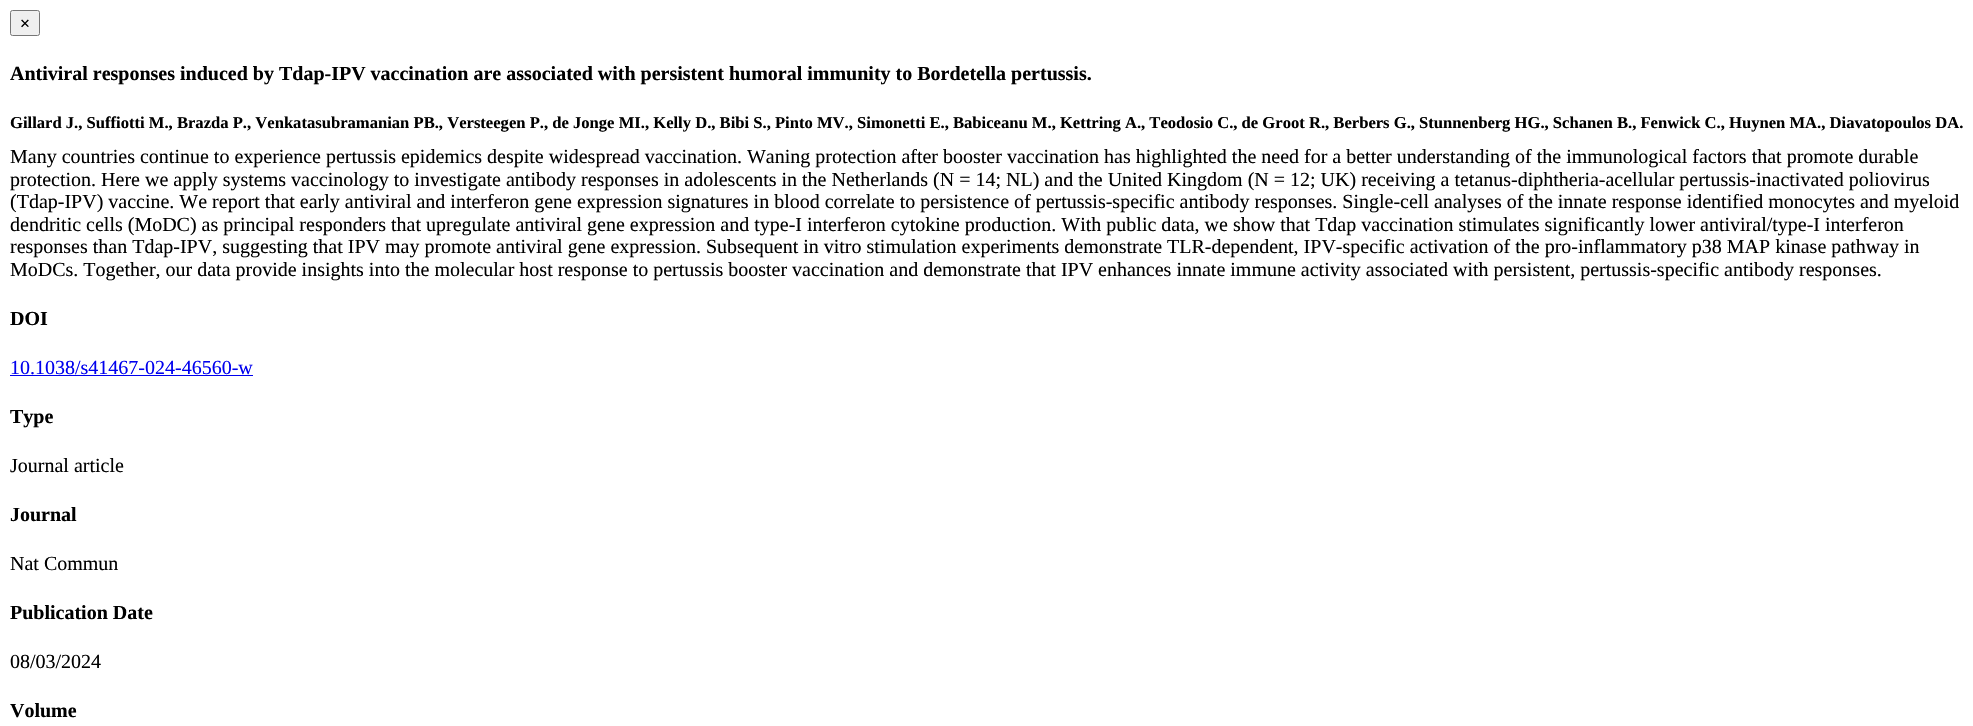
void draw(SkCanvas* canvas) {
    SkPaint paint;
    paint.setAntiAlias(true);
    auto face = [&](const char* family, int weight, float size, bool italic = false) {
        SkFontStyle style(weight, SkFontStyle::kNormal_Width,
            italic ? SkFontStyle::kItalic_Slant : SkFontStyle::kUpright_Slant);
        SkFont result(fontMgr->matchFamilyStyle(family, style), size);
        result.setSubpixel(true);
        return result;
    };
    auto write = [&](const char* s, float x, float y, const SkFont& font, SkColor color) {
        SkPaint ink(SkColor4f::FromColor(color));
        ink.setAntiAlias(true);
        canvas->drawString(s, x, y, font, ink);
    };
    auto block = [&](float x, float y, float w, float h, SkColor color) {
        SkPaint ink(SkColor4f::FromColor(color));
        ink.setAntiAlias(true);
        canvas->drawRect(SkRect::MakeXYWH(x, y, w, h), ink);
    };
    canvas->clear(SK_ColorWHITE);
    paint.setColor(SkColorSetRGB(239, 239, 239));
    canvas->drawRoundRect(SkRect::MakeXYWH(10.5f, 10.5f, 29, 25), 2, 2, paint);
    paint.setStyle(SkPaint::kStroke_Style);
    paint.setStrokeWidth(1);
    paint.setColor(SkColorSetRGB(118, 118, 118));
    canvas->drawRoundRect(SkRect::MakeXYWH(10.5f, 10.5f, 29, 25), 2, 2, paint);
    auto kFont1 = face("Liberation Sans", 400, 17);
    write("×", 20, 29, kFont1, SK_ColorBLACK);
    auto kFont2 = face("Liberation Serif", 700, 20);
    write("Antiviral responses induced by Tdap-IPV vaccination are associated with persistent humoral immunity to Bordetella pertussis.", 10, 80, kFont2, SK_ColorBLACK);
    auto kFont3 = face("Liberation Serif", 700, 16.6f);
    write("Gillard J., Suffiotti M., Brazda P., Venkatasubramanian PB., Versteegen P., de Jonge MI., Kelly D., Bibi S., Pinto MV., Simonetti E., Babiceanu M., Kettring A., Teodosio C., de Groot R., Berbers G., Stunnenberg HG., Schanen B., Fenwick C., Huynen MA., Diavatopoulos DA.", 10, 128, kFont3, SK_ColorBLACK);
    auto kFont4 = face("Liberation Serif", 400, 20);
    write("Many countries continue to experience pertussis epidemics despite widespread vaccination. Waning protection after booster vaccination has highlighted the need for a better understanding of the immunological factors that promote durable", 10, 163, kFont4, SK_ColorBLACK);
    write("protection. Here we apply systems vaccinology to investigate antibody responses in adolescents in the Netherlands (N = 14; NL) and the United Kingdom (N = 12; UK) receiving a tetanus-diphtheria-acellular pertussis-inactivated poliovirus", 10, 186, kFont4, SK_ColorBLACK);
    write("(Tdap-IPV) vaccine. We report that early antiviral and interferon gene expression signatures in blood correlate to persistence of pertussis-specific antibody responses. Single-cell analyses of the innate response identified monocytes and myeloid", 10, 208, kFont4, SK_ColorBLACK);
    write("dendritic cells (MoDC) as principal responders that upregulate antiviral gene expression and type-I interferon cytokine production. With public data, we show that Tdap vaccination stimulates significantly lower antiviral/type-I interferon", 10, 231, kFont4, SK_ColorBLACK);
    write("responses than Tdap-IPV, suggesting that IPV may promote antiviral gene expression. Subsequent in vitro stimulation experiments demonstrate TLR-dependent, IPV-specific activation of the pro-inflammatory p38 MAP kinase pathway in", 10, 253, kFont4, SK_ColorBLACK);
    write("MoDCs. Together, our data provide insights into the molecular host response to pertussis booster vaccination and demonstrate that IPV enhances innate immune activity associated with persistent, pertussis-specific antibody responses.", 10, 276, kFont4, SK_ColorBLACK);
    write("DOI", 10, 325, kFont2, SK_ColorBLACK);
    write("10.1038/s41467-024-46560-w", 10, 374, kFont4, SkColorSetRGB(0, 0, 238));
    block(10, 375, 243, 1, SkColorSetRGB(0, 0, 238));
    write("Type", 10, 423, kFont2, SK_ColorBLACK);
    write("Journal article", 10, 472, kFont4, SK_ColorBLACK);
    write("Journal", 10, 521, kFont2, SK_ColorBLACK);
    write("Nat Commun", 10, 570, kFont4, SK_ColorBLACK);
    write("Publication Date", 10, 619, kFont2, SK_ColorBLACK);
    write("08/03/2024", 10, 668, kFont4, SK_ColorBLACK);
    write("Volume", 10, 717, kFont2, SK_ColorBLACK);
}
